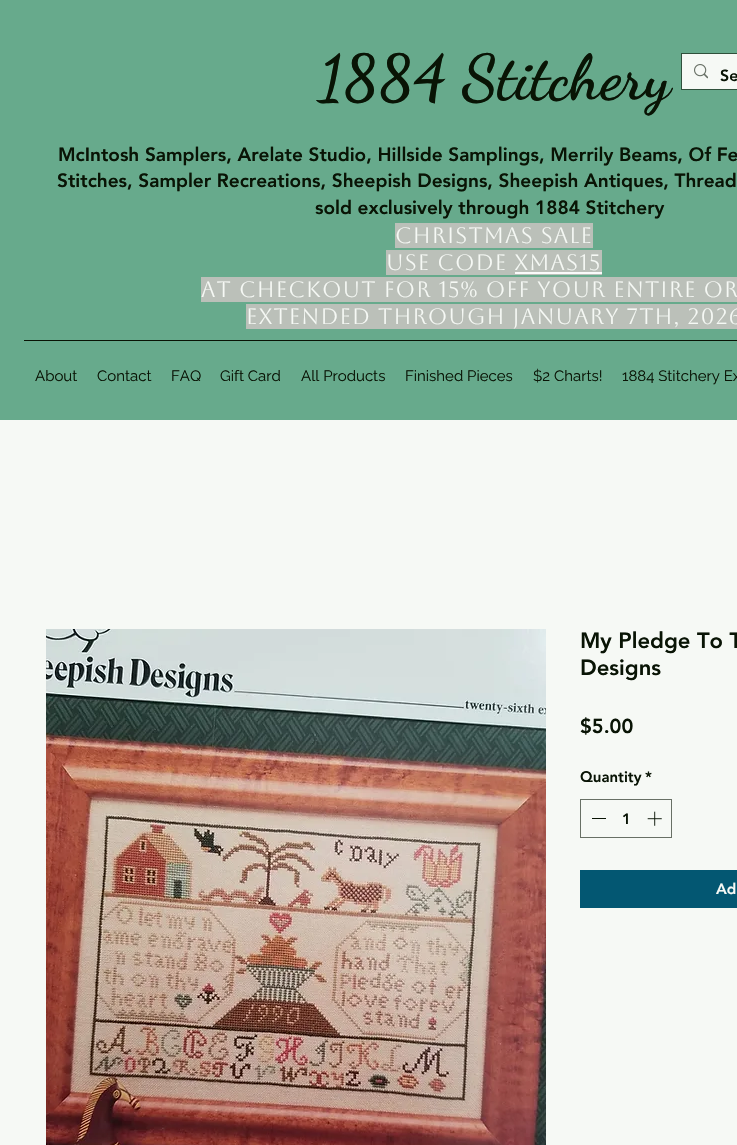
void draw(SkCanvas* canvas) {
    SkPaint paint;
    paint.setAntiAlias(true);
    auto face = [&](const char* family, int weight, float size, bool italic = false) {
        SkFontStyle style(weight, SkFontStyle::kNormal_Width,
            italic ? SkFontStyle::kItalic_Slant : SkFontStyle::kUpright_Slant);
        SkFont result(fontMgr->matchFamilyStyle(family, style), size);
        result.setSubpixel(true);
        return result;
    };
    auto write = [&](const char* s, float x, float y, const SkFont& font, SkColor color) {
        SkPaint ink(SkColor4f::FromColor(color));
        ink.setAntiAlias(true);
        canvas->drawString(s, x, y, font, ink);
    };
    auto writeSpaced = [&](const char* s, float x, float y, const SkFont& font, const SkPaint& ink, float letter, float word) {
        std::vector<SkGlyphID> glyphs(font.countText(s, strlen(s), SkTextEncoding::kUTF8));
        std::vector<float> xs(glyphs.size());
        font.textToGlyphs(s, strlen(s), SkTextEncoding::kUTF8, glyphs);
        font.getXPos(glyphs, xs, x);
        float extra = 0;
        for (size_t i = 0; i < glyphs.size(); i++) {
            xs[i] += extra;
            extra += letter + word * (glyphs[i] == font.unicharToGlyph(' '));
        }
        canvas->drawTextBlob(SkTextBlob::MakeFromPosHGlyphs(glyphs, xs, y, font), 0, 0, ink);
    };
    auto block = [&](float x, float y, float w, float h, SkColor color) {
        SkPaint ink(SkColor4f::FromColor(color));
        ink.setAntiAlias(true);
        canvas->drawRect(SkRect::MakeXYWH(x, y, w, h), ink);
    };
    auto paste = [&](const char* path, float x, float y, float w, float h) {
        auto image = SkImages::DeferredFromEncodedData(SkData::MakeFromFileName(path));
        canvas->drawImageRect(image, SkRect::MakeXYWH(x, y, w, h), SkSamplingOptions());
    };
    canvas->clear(SkColorSetRGB(246, 249, 245));
    block(0, 0, 737, 420, SkColorSetRGB(103, 170, 140));
    auto kFont1 = face("Dancing Script", 700, 63);
    write("1884 Stitchery", 318, 98, kFont1, SkColorSetRGB(9, 20, 5));
    paint.setStyle(SkPaint::kStroke_Style);
    paint.setStrokeWidth(1);
    paint.setColor(SkColorSetRGB(47, 80, 59));
    canvas->drawRect(SkRect::MakeXYWH(681.5f, 53.5f, 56, 36), paint);
    block(682, 54, 55, 35, SkColorSetRGB(246, 249, 245));
    paste("pic1.png", 694, 64, 14, 15);
    auto kFont2 = face("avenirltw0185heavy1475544", 900, 16);
    write("Se", 720, 81, kFont2, SkColorSetRGB(9, 20, 5));
    auto kFont3 = face("avenirltw0185heavy1475544", 900, 19);
    write("McIntosh Samplers, Arelate Studio, Hillside Samplings, Merrily Beams, Of Fe", 58, 161, kFont3, SkColorSetRGB(9, 20, 5));
    write("Stitches, Sampler Recreations, Sheepish Designs, Sheepish Antiques, Thread", 57, 187, kFont3, SkColorSetRGB(9, 20, 5));
    write("sold exclusively through 1884 Stitchery", 315, 214, kFont3, SkColorSetRGB(9, 20, 5));
    block(395, 223, 198, 25, SkColorSetRGB(187, 192, 185));
    auto kFont4 = face("Aboreto", 400, 22);
    paint.setStyle(SkPaint::kFill_Style);
    paint.setColor(SkColorSetRGB(246, 249, 245));
    writeSpaced("Christmas Sale", 395, 243, kFont4, paint, 1.1f, 0);
    block(386, 250, 216, 25, SkColorSetRGB(187, 192, 185));
    writeSpaced("Use code XMAS15", 386, 270, kFont4, paint, 1.1f, 0);
    block(515, 272, 87, 2, SkColorSetRGB(250, 250, 250));
    block(201, 277, 536, 25, SkColorSetRGB(187, 192, 185));
    writeSpaced("at checkout for 15% off your ENTIRE or", 201, 297, kFont4, paint, 1.1f, 0);
    block(246, 304, 491, 25, SkColorSetRGB(187, 192, 185));
    writeSpaced("extended through January 7th, 2026", 246, 324, kFont4, paint, 1.1f, 0);
    block(24, 340, 713, 1, SkColorSetRGB(9, 20, 5));
    auto kFont5 = face("Raleway", 400, 15);
    write("About", 35, 381, kFont5, SkColorSetRGB(9, 20, 5));
    write("Contact", 97, 381, kFont5, SkColorSetRGB(9, 20, 5));
    write("FAQ", 171, 381, kFont5, SkColorSetRGB(9, 20, 5));
    write("Gift Card", 220, 381, kFont5, SkColorSetRGB(9, 20, 5));
    write("All Products", 301, 381, kFont5, SkColorSetRGB(9, 20, 5));
    write("Finished Pieces", 405, 381, kFont5, SkColorSetRGB(9, 20, 5));
    write("$2 Charts!", 533, 381, kFont5, SkColorSetRGB(9, 20, 5));
    write("1884 Stitchery Ex", 622, 381, kFont5, SkColorSetRGB(9, 20, 5));
    paste("pic2.png", 46, 629, 500, 516);
    auto kFont6 = face("avenirltw0185heavy1475544", 900, 22);
    write("My Pledge To T", 580, 648, kFont6, SkColorSetRGB(9, 20, 5));
    write("Designs", 580, 675, kFont6, SkColorSetRGB(9, 20, 5));
    auto kFont7 = face("avenirltw0185heavy1475544", 900, 20);
    write("$5.00", 580, 733, kFont7, SkColorSetRGB(9, 20, 5));
    auto kFont8 = face("avenirltw0185heavy1475544", 900, 15);
    write("Quantity", 580, 782, kFont8, SkColorSetRGB(9, 20, 5));
    write("*", 645, 782, kFont8, SkColorSetRGB(9, 20, 5));
    paint.setStyle(SkPaint::kStroke_Style);
    paint.setColor(SkColorSetRGB(104, 112, 101));
    canvas->drawRect(SkRect::MakeXYWH(580.5f, 799.5f, 91, 38), paint);
    block(592, 818, 14, 1, SkColorSetRGB(9, 20, 5));
    write("1", 622, 824, kFont8, SkColorSetRGB(9, 20, 5));
    paste("pic3.png", 647, 811, 15, 15);
    block(580, 870, 157, 38, SkColorSetRGB(3, 87, 114));
    write("Ad", 716, 894, kFont8, SkColorSetRGB(246, 249, 245));
}
